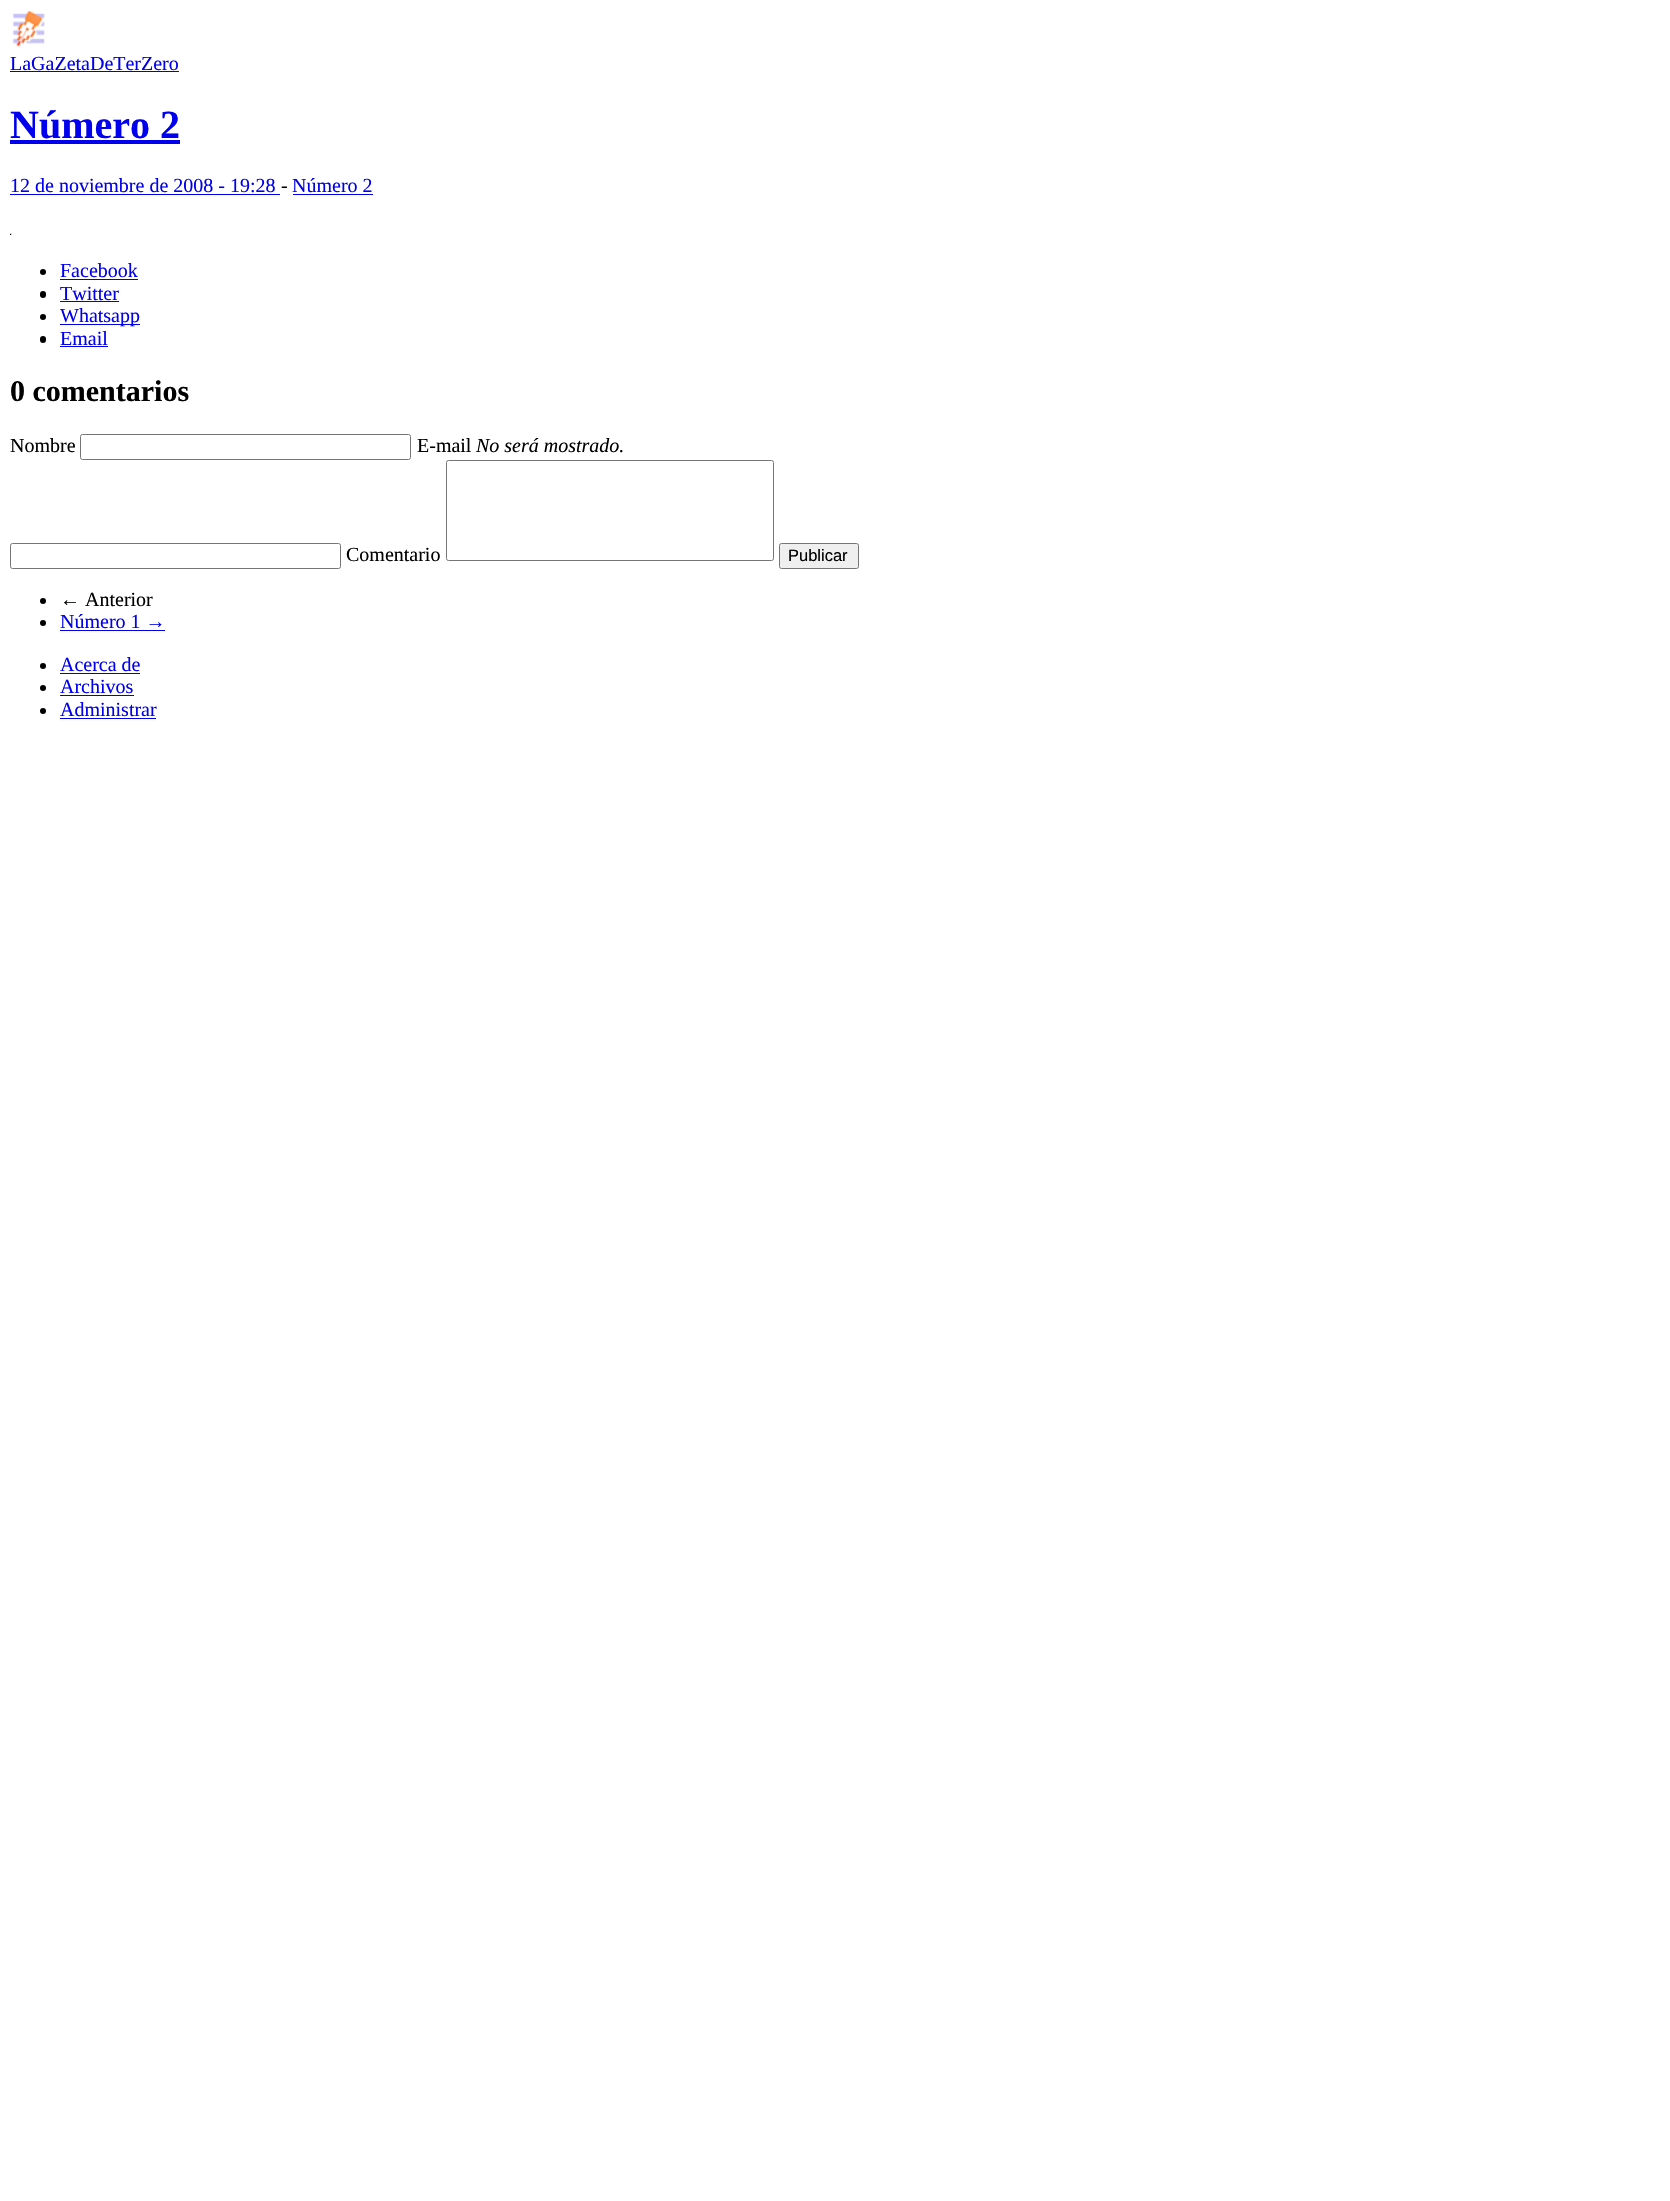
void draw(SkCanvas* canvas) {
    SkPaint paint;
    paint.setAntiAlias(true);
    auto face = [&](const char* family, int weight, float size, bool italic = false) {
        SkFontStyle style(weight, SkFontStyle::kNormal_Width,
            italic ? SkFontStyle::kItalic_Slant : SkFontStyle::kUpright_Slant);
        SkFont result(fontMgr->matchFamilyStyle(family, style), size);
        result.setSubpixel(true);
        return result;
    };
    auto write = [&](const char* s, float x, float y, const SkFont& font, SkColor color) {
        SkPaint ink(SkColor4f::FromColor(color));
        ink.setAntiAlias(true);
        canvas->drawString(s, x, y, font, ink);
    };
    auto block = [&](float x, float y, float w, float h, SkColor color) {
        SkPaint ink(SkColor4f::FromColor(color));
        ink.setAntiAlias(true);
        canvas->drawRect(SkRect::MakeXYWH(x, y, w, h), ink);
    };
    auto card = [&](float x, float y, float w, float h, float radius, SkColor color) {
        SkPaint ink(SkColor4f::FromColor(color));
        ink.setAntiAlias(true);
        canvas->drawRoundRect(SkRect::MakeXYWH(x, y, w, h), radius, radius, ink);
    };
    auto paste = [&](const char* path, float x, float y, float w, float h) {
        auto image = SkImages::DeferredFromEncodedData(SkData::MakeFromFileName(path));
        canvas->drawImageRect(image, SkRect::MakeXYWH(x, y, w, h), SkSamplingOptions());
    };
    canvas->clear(SK_ColorWHITE);
    paste("pic1.png", 12, 10, 33, 37);
    auto kFont1 = face("Liberation Serif", 400, 20);
    write("LaGaZetaDeTerZero", 10, 70, kFont1, SkColorSetRGB(0, 0, 238));
    block(10, 71, 169, 1, SkColorSetRGB(0, 0, 238));
    auto kFont2 = face("Liberation Serif", 700, 40);
    write("Número 2", 10, 138, kFont2, SkColorSetRGB(0, 0, 238));
    block(10, 140, 170, 4, SkColorSetRGB(0, 0, 238));
    write("12 de noviembre de 2008 - 19:28", 10, 192, kFont1, SkColorSetRGB(0, 0, 238));
    block(10, 194, 270, 1, SkColorSetRGB(0, 0, 238));
    write("-", 281, 192, kFont1, SK_ColorBLACK);
    write("Número 2", 292, 192, kFont1, SkColorSetRGB(0, 0, 238));
    block(293, 194, 80, 1, SkColorSetRGB(0, 0, 238));
    paste("pic2.png", 10, 233, 2, 2);
    paint.setColor(SK_ColorBLACK);
    canvas->drawCircle(43, 272, 3, paint);
    write("Facebook", 60, 277, kFont1, SkColorSetRGB(0, 0, 238));
    block(60, 279, 78, 1, SkColorSetRGB(0, 0, 238));
    card(40, 291, 6, 7, 3, SK_ColorBLACK);
    write("Twitter", 60, 300, kFont1, SkColorSetRGB(0, 0, 238));
    block(60, 301, 59, 1, SkColorSetRGB(0, 0, 238));
    canvas->drawCircle(43, 317, 3, paint);
    block(60, 324, 80, 1, SkColorSetRGB(0, 0, 238));
    write("Whatsapp", 60, 322, kFont1, SkColorSetRGB(0, 0, 238));
    card(40, 336, 6, 7, 3, SK_ColorBLACK);
    write("Email", 60, 345, kFont1, SkColorSetRGB(0, 0, 238));
    block(60, 346, 48, 1, SkColorSetRGB(0, 0, 238));
    auto kFont3 = face("Liberation Serif", 700, 30);
    write("0 comentarios", 10, 401, kFont3, SK_ColorBLACK);
    write("Nombre", 10, 452, kFont1, SK_ColorBLACK);
    paint.setStyle(SkPaint::kStroke_Style);
    paint.setStrokeWidth(1);
    paint.setColor(SkColorSetRGB(118, 118, 118));
    canvas->drawRoundRect(SkRect::MakeXYWH(80.5f, 434.5f, 330, 25), 2, 2, paint);
    write("E-mail", 417, 452, kFont1, SK_ColorBLACK);
    auto kFont4 = face("Liberation Serif", 400, 20, true);
    write("No será mostrado.", 476, 452, kFont4, SK_ColorBLACK);
    canvas->drawRoundRect(SkRect::MakeXYWH(10.5f, 543.5f, 330, 25), 2, 2, paint);
    write("Comentario", 346, 561, kFont1, SK_ColorBLACK);
    canvas->drawRoundRect(SkRect::MakeXYWH(446.5f, 460.5f, 327, 100), 2, 2, paint);
    paint.setStyle(SkPaint::kFill_Style);
    paint.setColor(SkColorSetRGB(239, 239, 239));
    canvas->drawRoundRect(SkRect::MakeXYWH(779.5f, 543.5f, 79, 25), 2, 2, paint);
    paint.setStyle(SkPaint::kStroke_Style);
    paint.setColor(SkColorSetRGB(118, 118, 118));
    canvas->drawRoundRect(SkRect::MakeXYWH(779.5f, 543.5f, 79, 25), 2, 2, paint);
    auto kFont5 = face("Liberation Sans", 400, 16.5f);
    write("Publicar", 788, 561, kFont5, SK_ColorBLACK);
    paint.setStyle(SkPaint::kFill_Style);
    paint.setColor(SK_ColorBLACK);
    canvas->drawCircle(43, 601, 3, paint);
    write("← Anterior", 60, 606, kFont1, SK_ColorBLACK);
    canvas->drawCircle(43, 623, 3, paint);
    write("Número 1 →", 60, 628, kFont1, SkColorSetRGB(0, 0, 238));
    block(60, 630, 105, 1, SkColorSetRGB(0, 0, 238));
    canvas->drawCircle(43, 666, 3, paint);
    write("Acerca de", 60, 671, kFont1, SkColorSetRGB(0, 0, 238));
    block(60, 673, 80, 1, SkColorSetRGB(0, 0, 238));
    canvas->drawCircle(43, 688, 3, paint);
    write("Archivos", 60, 693, kFont1, SkColorSetRGB(0, 0, 238));
    block(60, 695, 74, 1, SkColorSetRGB(0, 0, 238));
    canvas->drawCircle(43, 711, 3, paint);
    write("Administrar", 60, 716, kFont1, SkColorSetRGB(0, 0, 238));
    block(60, 718, 96, 1, SkColorSetRGB(0, 0, 238));
}
